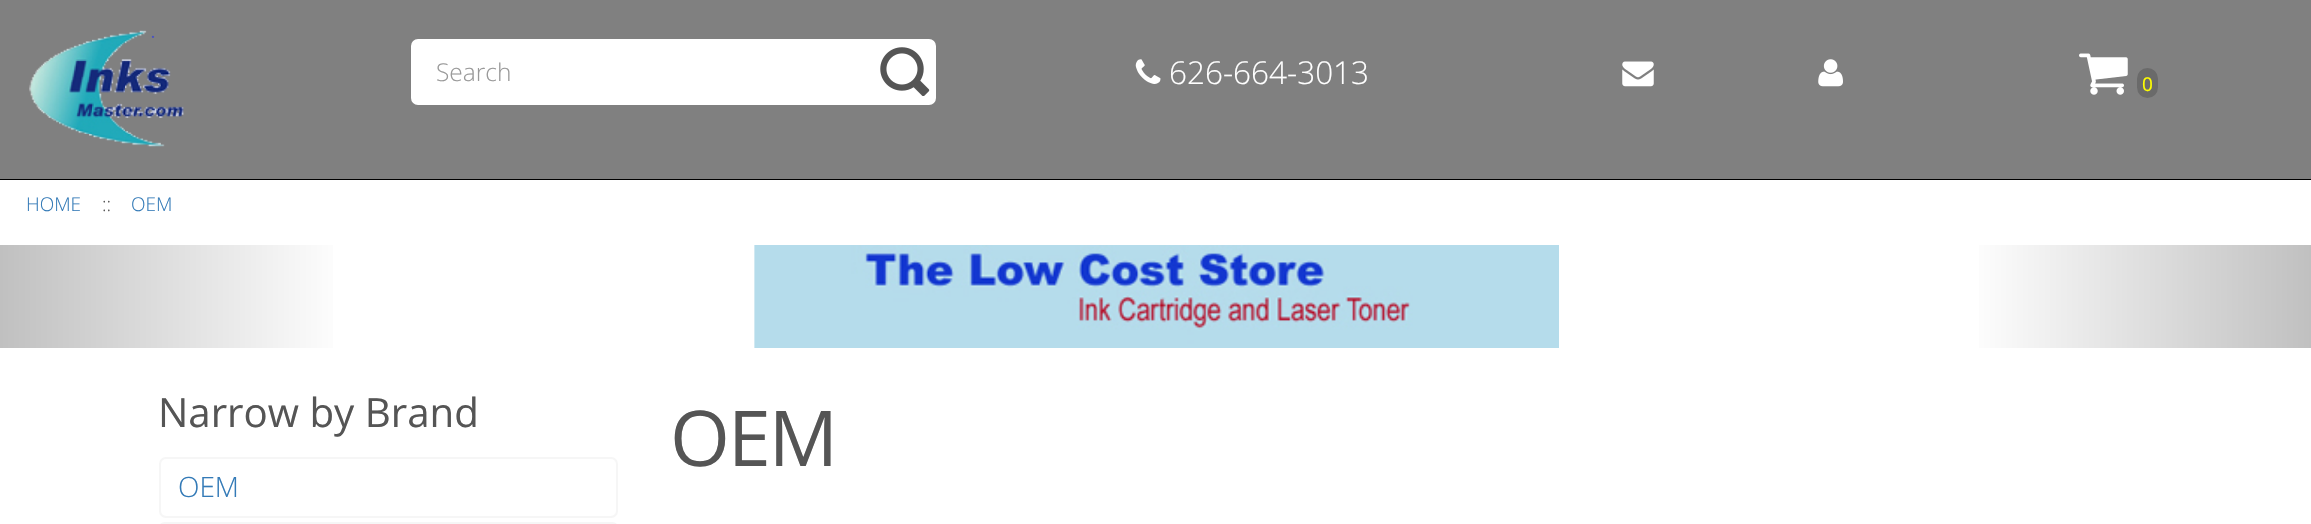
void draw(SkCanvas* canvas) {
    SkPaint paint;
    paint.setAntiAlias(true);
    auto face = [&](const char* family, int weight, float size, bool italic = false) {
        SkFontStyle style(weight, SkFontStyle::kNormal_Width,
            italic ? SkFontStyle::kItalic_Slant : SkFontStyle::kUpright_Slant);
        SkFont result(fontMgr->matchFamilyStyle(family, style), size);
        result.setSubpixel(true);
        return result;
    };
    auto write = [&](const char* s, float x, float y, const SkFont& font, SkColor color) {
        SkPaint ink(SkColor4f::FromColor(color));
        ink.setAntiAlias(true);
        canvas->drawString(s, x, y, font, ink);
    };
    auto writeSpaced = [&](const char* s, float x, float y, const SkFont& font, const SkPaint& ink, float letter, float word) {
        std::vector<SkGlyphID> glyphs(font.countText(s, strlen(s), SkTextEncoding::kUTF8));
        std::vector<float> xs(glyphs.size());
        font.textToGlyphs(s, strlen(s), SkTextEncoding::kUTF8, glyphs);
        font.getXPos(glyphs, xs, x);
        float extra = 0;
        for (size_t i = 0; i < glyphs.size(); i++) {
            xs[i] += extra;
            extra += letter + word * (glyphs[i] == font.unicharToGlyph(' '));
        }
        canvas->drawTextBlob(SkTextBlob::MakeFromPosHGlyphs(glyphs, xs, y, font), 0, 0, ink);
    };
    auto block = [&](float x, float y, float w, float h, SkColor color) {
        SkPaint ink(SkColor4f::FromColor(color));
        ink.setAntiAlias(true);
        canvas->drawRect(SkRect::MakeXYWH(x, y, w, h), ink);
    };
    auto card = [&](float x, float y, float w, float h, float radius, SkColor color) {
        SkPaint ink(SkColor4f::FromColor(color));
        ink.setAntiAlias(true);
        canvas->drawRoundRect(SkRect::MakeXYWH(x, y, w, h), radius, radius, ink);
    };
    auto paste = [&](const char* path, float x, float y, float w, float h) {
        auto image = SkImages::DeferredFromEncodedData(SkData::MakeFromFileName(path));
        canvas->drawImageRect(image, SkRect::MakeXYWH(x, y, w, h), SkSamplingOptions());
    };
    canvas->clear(SK_ColorWHITE);
    block(0, 0, 2311, 179, SkColorSetRGB(128, 128, 128));
    paste("pic1.png", 29, 30, 155, 117);
    paint.setColor(SK_ColorWHITE);
    canvas->drawRoundRect(SkRect::MakeXYWH(412, 40, 523, 64), 6, 6, paint);
    paint.setStyle(SkPaint::kStroke_Style);
    paint.setStrokeWidth(2);
    canvas->drawRoundRect(SkRect::MakeXYWH(412, 40, 523, 64), 6, 6, paint);
    auto kFont1 = face("Open Sans", 300, 24.5f);
    write("Search", 436, 81, kFont1, SkColorSetRGB(153, 153, 153));
    paste("pic2.png", 880, 47, 50, 49);
    paste("pic3.png", 1135, 59, 26, 25);
    auto kFont2 = face("Open Sans", 300, 31.5f);
    write("626-664-3013", 1169, 84, kFont2, SK_ColorWHITE);
    paste("pic4.png", 1622, 61, 32, 26);
    paste("pic5.png", 1818, 59, 25, 28);
    paste("pic6.png", 2079, 53, 49, 42);
    card(2137, 68, 21, 30, 10.5f, SkColorSetRGB(106, 106, 106));
    auto kFont3 = face("Open Sans", 400, 19);
    write("0", 2142, 91, kFont3, SkColorSetRGB(255, 255, 0));
    block(0, 179, 2311, 1, SK_ColorBLACK);
    auto kFont4 = face("Open Sans", 300, 19);
    write("HOME", 26, 211, kFont4, SkColorSetRGB(51, 122, 183));
    write("::", 102, 211, kFont4, SkColorSetRGB(85, 85, 85));
    write("OEM", 131, 211, kFont4, SkColorSetRGB(51, 122, 183));
    paint.setStyle(SkPaint::kFill_Style);
    {
        const SkColor colors[] = {SkColorSetRGB(192, 192, 192), SK_ColorWHITE};
        const float stops[] = {0, 1};
        const SkPoint ends[] = {{0, 297}, {347, 297}};
        paint.setShader(SkGradientShader::MakeLinear(ends, colors, stops, 2, SkTileMode::kClamp));
        paint.setAlpha(255);
    }
    canvas->drawRect(SkRect::MakeXYWH(0, 245, 333, 103), paint);
    paste("pic7.png", 754, 245, 805, 103);
    {
        const SkColor colors[] = {SK_ColorWHITE, SkColorSetRGB(192, 192, 192)};
        const float stops[] = {0, 1};
        const SkPoint ends[] = {{1965, 297}, {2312, 297}};
        paint.setShader(SkGradientShader::MakeLinear(ends, colors, stops, 2, SkTileMode::kClamp));
        paint.setAlpha(255);
    }
    canvas->drawRect(SkRect::MakeXYWH(1979, 245, 332, 103), paint);
    auto kFont5 = face("Open Sans", 400, 40.25f);
    write("Narrow by Brand", 158, 427, kFont5, SkColorSetRGB(85, 85, 85));
    paint.setStyle(SkPaint::kStroke_Style);
    paint.setShader(nullptr);
    paint.setColor(SkColorSetRGB(246, 246, 246));
    canvas->drawRoundRect(SkRect::MakeXYWH(160, 458, 457, 59), 6, 6, paint);
    auto kFont6 = face("Open Sans", 300, 28);
    write("OEM", 178, 497, kFont6, SkColorSetRGB(51, 122, 183));
    canvas->drawRoundRect(SkRect::MakeXYWH(160, 523, 457, 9), 6, 6, paint);
    auto kFont7 = face("Open Sans", 400, 77);
    paint.setStyle(SkPaint::kFill_Style);
    paint.setColor(SkColorSetRGB(85, 85, 85));
    writeSpaced("OEM", 670, 466, kFont7, paint, -2, 0);
}
